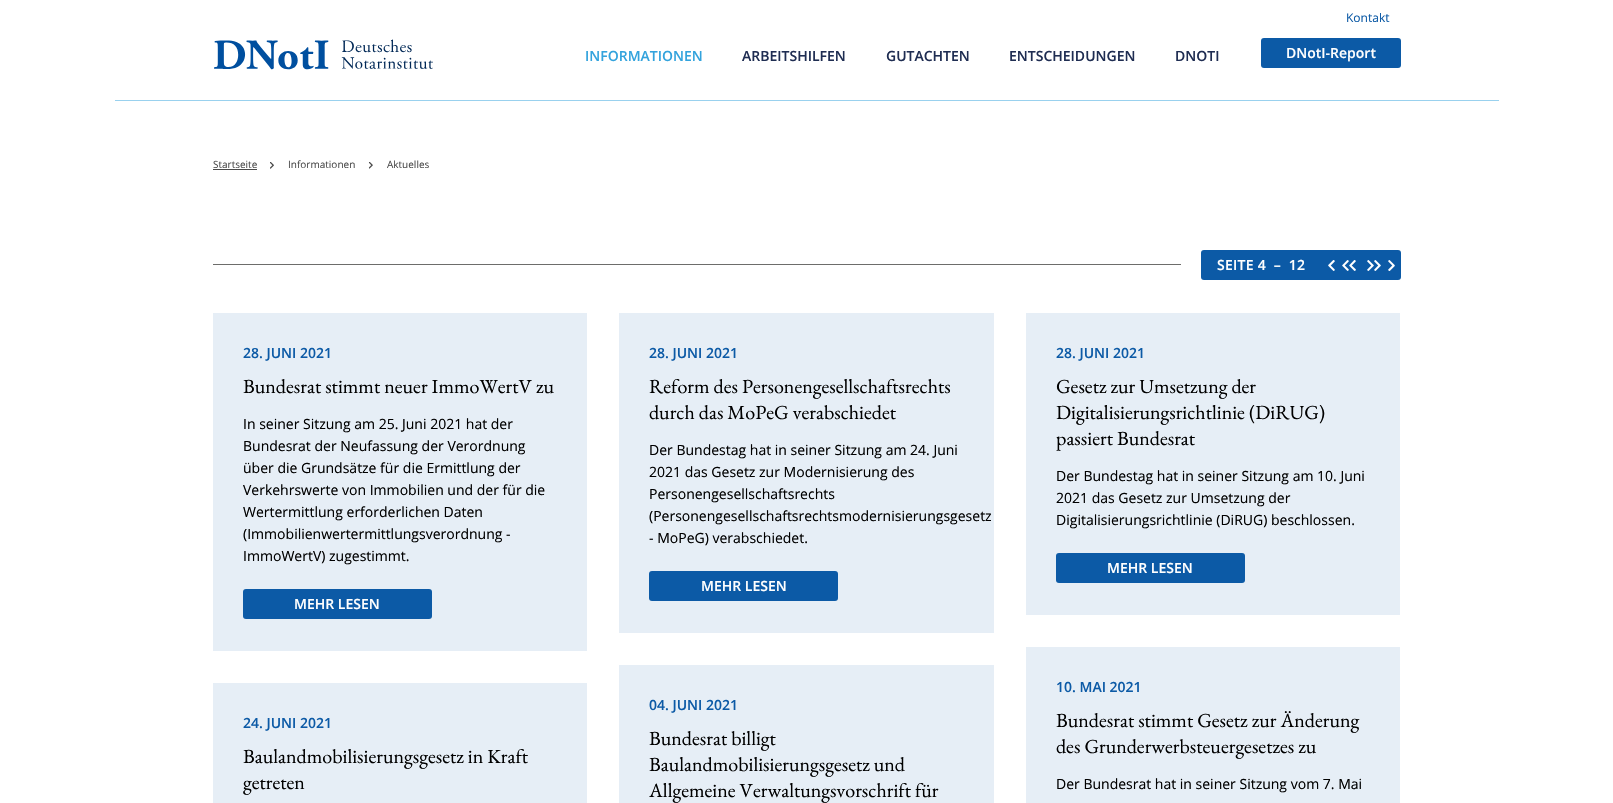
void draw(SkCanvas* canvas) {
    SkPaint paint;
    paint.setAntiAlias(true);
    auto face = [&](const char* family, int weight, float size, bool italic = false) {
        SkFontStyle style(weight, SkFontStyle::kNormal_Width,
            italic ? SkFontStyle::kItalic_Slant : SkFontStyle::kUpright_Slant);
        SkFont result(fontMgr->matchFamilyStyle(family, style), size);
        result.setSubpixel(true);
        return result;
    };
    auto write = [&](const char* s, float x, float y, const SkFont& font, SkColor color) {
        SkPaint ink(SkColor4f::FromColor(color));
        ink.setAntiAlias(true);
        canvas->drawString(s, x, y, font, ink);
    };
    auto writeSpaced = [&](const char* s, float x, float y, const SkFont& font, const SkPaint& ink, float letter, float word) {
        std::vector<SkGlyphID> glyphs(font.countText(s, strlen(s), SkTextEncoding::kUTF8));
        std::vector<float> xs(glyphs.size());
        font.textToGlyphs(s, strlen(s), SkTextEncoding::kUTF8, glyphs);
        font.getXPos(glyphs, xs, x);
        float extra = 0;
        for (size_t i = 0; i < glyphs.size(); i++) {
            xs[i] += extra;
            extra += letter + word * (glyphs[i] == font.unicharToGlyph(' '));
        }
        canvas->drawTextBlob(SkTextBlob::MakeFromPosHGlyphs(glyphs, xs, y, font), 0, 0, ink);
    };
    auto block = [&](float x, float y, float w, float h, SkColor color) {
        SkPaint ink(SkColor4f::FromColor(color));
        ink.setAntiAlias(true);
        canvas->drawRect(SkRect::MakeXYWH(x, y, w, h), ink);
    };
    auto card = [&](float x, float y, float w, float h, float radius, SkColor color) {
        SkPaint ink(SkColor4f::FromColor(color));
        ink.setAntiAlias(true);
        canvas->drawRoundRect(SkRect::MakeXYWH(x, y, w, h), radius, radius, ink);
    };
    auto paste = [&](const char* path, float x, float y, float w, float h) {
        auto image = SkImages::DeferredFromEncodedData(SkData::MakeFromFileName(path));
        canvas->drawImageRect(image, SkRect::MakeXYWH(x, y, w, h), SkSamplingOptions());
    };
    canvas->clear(SK_ColorWHITE);
    paste("pic1.png", 214, 39, 219, 31);
    auto kFont1 = face("Open Sans", 400, 12);
    write("Kontakt", 1346, 22, kFont1, SkColorSetRGB(12, 90, 166));
    auto kFont2 = face("Open Sans", 600, 14);
    write("INFORMATIONEN", 585, 61, kFont2, SkColorSetRGB(51, 163, 221));
    write("ARBEITSHILFEN", 742, 61, kFont2, SkColorSetRGB(31, 45, 82));
    write("GUTACHTEN", 886, 61, kFont2, SkColorSetRGB(31, 45, 82));
    write("ENTSCHEIDUNGEN", 1009, 61, kFont2, SkColorSetRGB(31, 45, 82));
    write("DNOTI", 1175, 61, kFont2, SkColorSetRGB(31, 45, 82));
    card(1261, 38, 140, 30, 3, SkColorSetRGB(12, 90, 166));
    write("DNotI-Report", 1286, 58, kFont2, SK_ColorWHITE);
    block(115, 100, 1384, 1, SkColorSetRGB(153, 209, 238));
    auto kFont3 = face("Open Sans", 400, 10);
    write("Startseite", 213, 168, kFont3, SkColorSetRGB(74, 74, 74));
    block(213, 169, 44, 1, SkColorSetRGB(74, 74, 74));
    paste("pic2.png", 270, 162, 4, 7);
    write("Informationen", 288, 168, kFont3, SkColorSetRGB(74, 74, 74));
    paste("pic3.png", 368, 162, 5, 7);
    write("Aktuelles", 387, 168, kFont3, SkColorSetRGB(74, 74, 74));
    block(213, 264, 968, 1, SkColorSetRGB(109, 109, 107));
    card(1201, 250, 200, 30, 3, SkColorSetRGB(12, 90, 166));
    paint.setColor(SK_ColorWHITE);
    writeSpaced("SEITE 4  –  12", 1217, 270, kFont2, paint, 0.25f, 0);
    paste("pic4.png", 1328, 260, 7, 11);
    paste("pic5.png", 1342, 260, 14, 11);
    paste("pic6.png", 1367, 260, 14, 11);
    paste("pic7.png", 1388, 260, 7, 11);
    block(213, 313, 374, 338, SkColorSetRGB(230, 238, 246));
    write("28. JUNI 2021", 243, 358, kFont2, SkColorSetRGB(12, 90, 166));
    auto kFont4 = face("EB Garamond", 400, 20);
    write("Bundesrat stimmt neuer ImmoWertV zu", 243, 393, kFont4, SK_ColorBLACK);
    auto kFont5 = face("Open Sans", 400, 14);
    write("In seiner Sitzung am 25. Juni 2021 hat der", 243, 429, kFont5, SK_ColorBLACK);
    write("Bundesrat der Neufassung der Verordnung", 243, 451, kFont5, SK_ColorBLACK);
    write("über die Grundsätze für die Ermittlung der", 243, 473, kFont5, SK_ColorBLACK);
    write("Verkehrswerte von Immobilien und der für die", 243, 495, kFont5, SK_ColorBLACK);
    write("Wertermittlung erforderlichen Daten", 243, 517, kFont5, SK_ColorBLACK);
    write("(Immobilienwertermittlungsverordnung -", 243, 539, kFont5, SK_ColorBLACK);
    write("ImmoWertV) zugestimmt.", 243, 561, kFont5, SK_ColorBLACK);
    card(243, 589, 189, 30, 3, SkColorSetRGB(12, 90, 166));
    write("MEHR LESEN", 294, 609, kFont2, SK_ColorWHITE);
    block(619, 313, 375, 320, SkColorSetRGB(230, 238, 246));
    write("28. JUNI 2021", 649, 358, kFont2, SkColorSetRGB(12, 90, 166));
    write("Reform des Personengesellschaftsrechts", 649, 393, kFont4, SK_ColorBLACK);
    write("durch das MoPeG verabschiedet", 649, 419, kFont4, SK_ColorBLACK);
    write("Der Bundestag hat in seiner Sitzung am 24. Juni", 649, 455, kFont5, SK_ColorBLACK);
    write("2021 das Gesetz zur Modernisierung des", 649, 477, kFont5, SK_ColorBLACK);
    write("Personengesellschaftsrechts", 649, 499, kFont5, SK_ColorBLACK);
    write("(Personengesellschaftsrechtsmodernisierungsgesetz", 649, 521, kFont5, SK_ColorBLACK);
    write("- MoPeG) verabschiedet.", 649, 543, kFont5, SK_ColorBLACK);
    card(649, 571, 189, 30, 3, SkColorSetRGB(12, 90, 166));
    write("MEHR LESEN", 701, 591, kFont2, SK_ColorWHITE);
    block(1026, 313, 374, 302, SkColorSetRGB(230, 238, 246));
    write("28. JUNI 2021", 1056, 358, kFont2, SkColorSetRGB(12, 90, 166));
    write("Gesetz zur Umsetzung der", 1056, 393, kFont4, SK_ColorBLACK);
    write("Digitalisierungsrichtlinie (DiRUG)", 1056, 419, kFont4, SK_ColorBLACK);
    write("passiert Bundesrat", 1056, 445, kFont4, SK_ColorBLACK);
    write("Der Bundestag hat in seiner Sitzung am 10. Juni", 1056, 481, kFont5, SK_ColorBLACK);
    write("2021 das Gesetz zur Umsetzung der", 1056, 503, kFont5, SK_ColorBLACK);
    write("Digitalisierungsrichtlinie (DiRUG) beschlossen.", 1056, 525, kFont5, SK_ColorBLACK);
    card(1056, 553, 189, 30, 3, SkColorSetRGB(12, 90, 166));
    write("MEHR LESEN", 1107, 573, kFont2, SK_ColorWHITE);
    block(213, 683, 374, 120, SkColorSetRGB(230, 238, 246));
    write("24. JUNI 2021", 243, 728, kFont2, SkColorSetRGB(12, 90, 166));
    write("Baulandmobilisierungsgesetz in Kraft", 243, 763, kFont4, SK_ColorBLACK);
    write("getreten", 243, 789, kFont4, SK_ColorBLACK);
    block(619, 665, 375, 138, SkColorSetRGB(230, 238, 246));
    write("04. JUNI 2021", 649, 710, kFont2, SkColorSetRGB(12, 90, 166));
    write("Bundesrat billigt", 649, 745, kFont4, SK_ColorBLACK);
    write("Baulandmobilisierungsgesetz und", 649, 771, kFont4, SK_ColorBLACK);
    write("Allgemeine Verwaltungsvorschrift für", 649, 797, kFont4, SK_ColorBLACK);
    block(1026, 647, 374, 156, SkColorSetRGB(230, 238, 246));
    write("10. MAI 2021", 1056, 692, kFont2, SkColorSetRGB(12, 90, 166));
    write("Bundesrat stimmt Gesetz zur Änderung", 1056, 727, kFont4, SK_ColorBLACK);
    write("des Grunderwerbsteuergesetzes zu", 1056, 753, kFont4, SK_ColorBLACK);
    write("Der Bundesrat hat in seiner Sitzung vom 7. Mai", 1056, 789, kFont5, SK_ColorBLACK);
}
